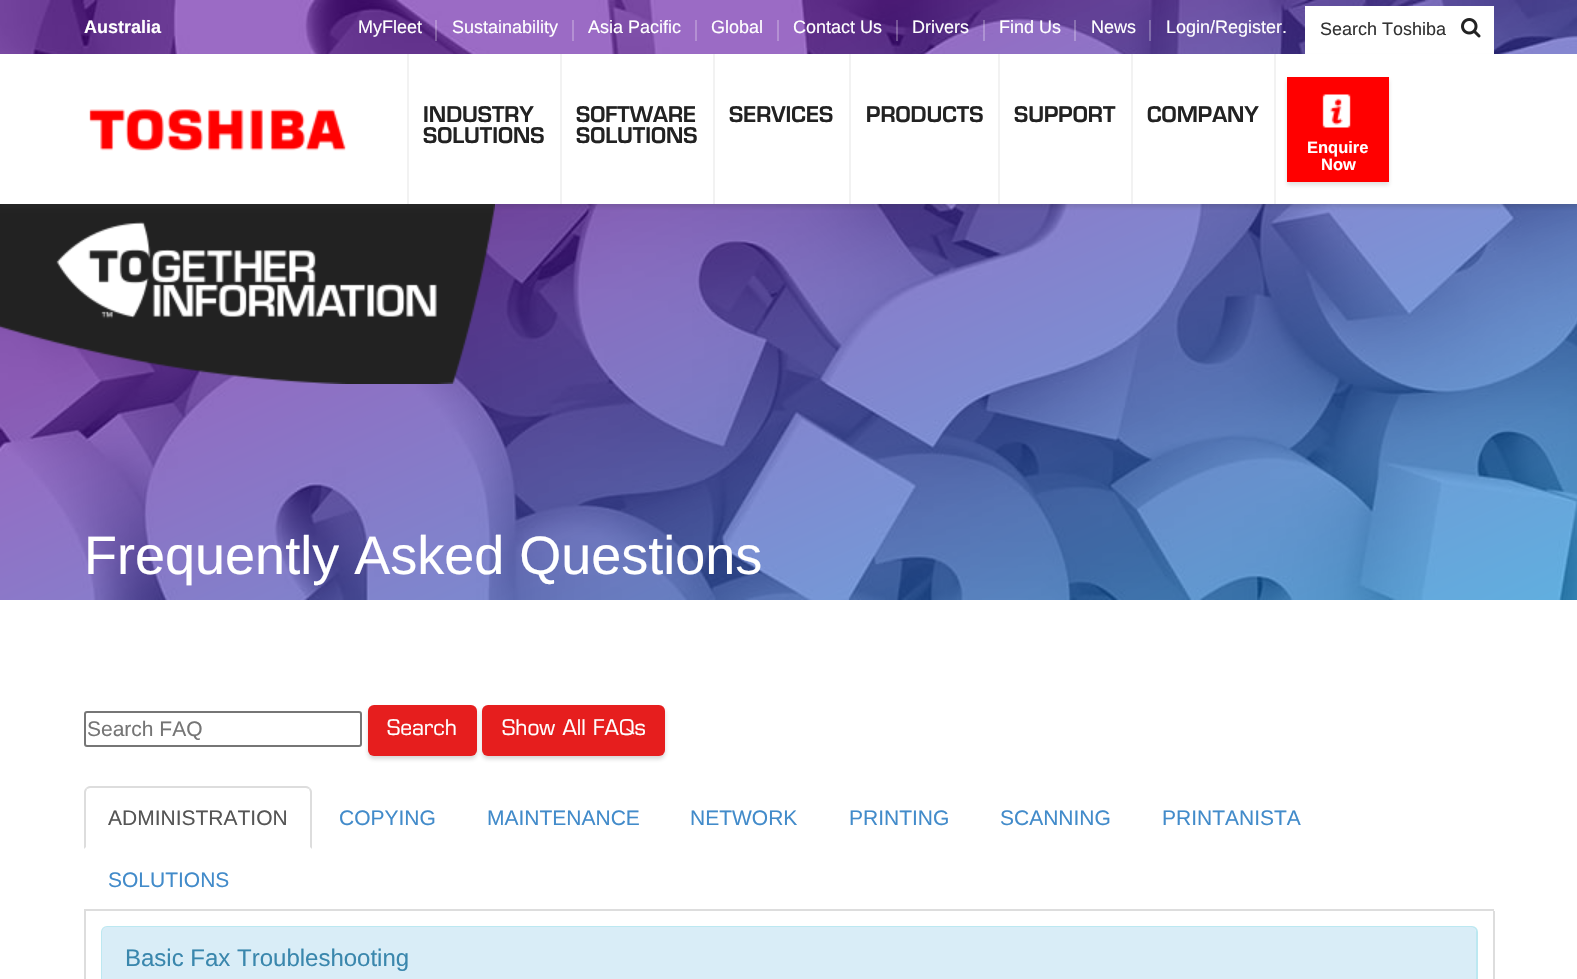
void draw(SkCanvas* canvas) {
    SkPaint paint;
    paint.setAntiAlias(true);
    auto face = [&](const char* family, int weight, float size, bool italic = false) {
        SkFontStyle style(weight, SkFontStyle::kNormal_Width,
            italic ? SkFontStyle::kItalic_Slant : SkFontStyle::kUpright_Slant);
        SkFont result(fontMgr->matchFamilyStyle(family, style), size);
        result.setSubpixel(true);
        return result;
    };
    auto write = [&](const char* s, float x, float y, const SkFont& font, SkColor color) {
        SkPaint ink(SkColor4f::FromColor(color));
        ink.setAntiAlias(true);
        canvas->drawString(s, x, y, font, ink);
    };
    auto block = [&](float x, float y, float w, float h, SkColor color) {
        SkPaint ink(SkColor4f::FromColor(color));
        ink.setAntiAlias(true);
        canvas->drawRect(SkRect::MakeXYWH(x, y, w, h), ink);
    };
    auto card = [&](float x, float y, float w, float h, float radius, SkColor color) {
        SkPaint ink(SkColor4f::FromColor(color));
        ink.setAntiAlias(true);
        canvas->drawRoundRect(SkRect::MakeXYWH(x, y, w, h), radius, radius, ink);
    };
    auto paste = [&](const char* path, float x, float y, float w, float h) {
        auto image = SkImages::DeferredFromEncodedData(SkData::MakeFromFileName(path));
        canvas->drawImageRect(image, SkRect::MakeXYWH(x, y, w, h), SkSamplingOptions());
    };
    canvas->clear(SK_ColorWHITE);
    {
        const SkColor colors[] = {SkColorSetRGB(104, 7, 188), SkColorSetRGB(0, 159, 255)};
        const float stops[] = {0.3f, 1};
        const SkPoint ends[] = {{547, -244}, {1031, 844}};
        paint.setShader(SkGradientShader::MakeLinear(ends, colors, stops, 2, SkTileMode::kClamp));
        paint.setAlpha(255);
    }
    canvas->drawRect(SkRect::MakeXYWH(0, 0, 1577, 600), paint);
    paste("pic4.png", 0, 0, 1577, 600);
    auto kFont1 = face("Liberation Sans", 700, 18);
    write("Australia", 84, 33, kFont1, SK_ColorWHITE);
    auto kFont2 = face("Liberation Sans", 400, 18);
    write("MyFleet", 358, 33, kFont2, SK_ColorWHITE);
    block(435, 20, 2, 21, SkColorSetARGB(64, 255, 255, 255));
    write("Sustainability", 452, 33, kFont2, SK_ColorWHITE);
    block(572, 20, 2, 21, SkColorSetRGB(180, 144, 211));
    write("Asia Pacific", 588, 33, kFont2, SK_ColorWHITE);
    block(695, 20, 2, 21, SkColorSetRGB(180, 144, 211));
    write("Global", 711, 33, kFont2, SK_ColorWHITE);
    block(777, 20, 2, 21, SkColorSetRGB(180, 144, 211));
    write("Contact Us", 793, 33, kFont2, SK_ColorWHITE);
    block(896, 20, 2, 21, SkColorSetARGB(64, 255, 255, 255));
    write("Drivers", 912, 33, kFont2, SK_ColorWHITE);
    block(983, 20, 2, 21, SkColorSetARGB(64, 255, 255, 255));
    write("Find Us", 999, 33, kFont2, SK_ColorWHITE);
    block(1074, 20, 2, 21, SkColorSetARGB(64, 255, 255, 255));
    write("News", 1091, 33, kFont2, SK_ColorWHITE);
    block(1149, 20, 2, 21, SkColorSetARGB(64, 255, 255, 255));
    write("Login/Register.", 1166, 33, kFont2, SK_ColorWHITE);
    block(1305, 6, 189, 48, SK_ColorWHITE);
    write("Search Toshiba", 1320, 35, kFont2, SkColorSetRGB(51, 51, 51));
    paste("pic1.png", 1461, 18, 20, 20);
    paste("pic5.png", 0, 204, 495, 180);
    paint.setShader(nullptr);
    paint.setColor(SkColorSetARGB(41, 50, 50, 50));
    paint.setMaskFilter(SkMaskFilter::MakeBlur(kNormal_SkBlurStyle, 2));
    canvas->drawRect(SkRect::MakeXYWH(0, 57, 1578, 150), paint);
    paint.setMaskFilter(nullptr);
    block(0, 54, 1577, 150, SK_ColorWHITE);
    paste("pic2.png", 89, 109, 257, 42);
    block(407, 54, 2, 150, SkColorSetRGB(242, 242, 242));
    auto kFont3 = face("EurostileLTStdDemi", 600, 21);
    write("INDUSTRY", 423, 122, kFont3, SkColorSetRGB(34, 34, 34));
    write("SOLUTIONS", 423, 143, kFont3, SkColorSetRGB(34, 34, 34));
    block(560, 54, 2, 150, SkColorSetRGB(242, 242, 242));
    write("SOFTWARE", 576, 122, kFont3, SkColorSetRGB(34, 34, 34));
    write("SOLUTIONS", 576, 143, kFont3, SkColorSetRGB(34, 34, 34));
    block(713, 54, 2, 150, SkColorSetRGB(242, 242, 242));
    write("SERVICES", 729, 122, kFont3, SkColorSetRGB(34, 34, 34));
    block(849, 54, 2, 150, SkColorSetRGB(242, 242, 242));
    write("PRODUCTS", 866, 122, kFont3, SkColorSetRGB(34, 34, 34));
    block(998, 54, 2, 150, SkColorSetRGB(242, 242, 242));
    write("SUPPORT", 1014, 122, kFont3, SkColorSetRGB(34, 34, 34));
    block(1274, 54, 2, 150, SkColorSetRGB(242, 242, 242));
    block(1131, 54, 2, 150, SkColorSetRGB(242, 242, 242));
    write("COMPANY", 1147, 122, kFont3, SkColorSetRGB(34, 34, 34));
    paint.setColor(SkColorSetARGB(38, 50, 50, 50));
    paint.setMaskFilter(SkMaskFilter::MakeBlur(kNormal_SkBlurStyle, 2));
    canvas->drawRect(SkRect::MakeXYWH(1287, 80, 102, 105), paint);
    paint.setMaskFilter(nullptr);
    block(1287, 77, 102, 105, SkColorSetRGB(255, 0, 0));
    paste("pic3.png", 1322, 94, 29, 34);
    auto kFont4 = face("Liberation Sans", 700, 16.5f);
    write("Enquire", 1307, 153, kFont4, SK_ColorWHITE);
    write("Now", 1321, 170, kFont4, SK_ColorWHITE);
    auto kFont5 = face("Liberation Sans", 400, 54);
    write("Frequently Asked Questions", 84, 574, kFont5, SK_ColorWHITE);
    paint.setStyle(SkPaint::kStroke_Style);
    paint.setStrokeWidth(2);
    paint.setColor(SkColorSetRGB(118, 118, 118));
    canvas->drawRoundRect(SkRect::MakeXYWH(85, 712, 276, 34), 2, 2, paint);
    auto kFont6 = face("Liberation Sans", 400, 21);
    write("Search FAQ", 87, 736, kFont6, SkColorSetRGB(117, 117, 117));
    paint.setStyle(SkPaint::kFill_Style);
    paint.setColor(SkColorSetARGB(51, 50, 50, 50));
    paint.setMaskFilter(SkMaskFilter::MakeBlur(kNormal_SkBlurStyle, 2));
    canvas->drawRoundRect(SkRect::MakeXYWH(368, 708, 109, 51), 6, 6, paint);
    paint.setMaskFilter(nullptr);
    card(368, 705, 109, 51, 6, SkColorSetRGB(230, 30, 30));
    auto kFont7 = face("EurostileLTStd", 400, 21);
    write("Search", 387, 735, kFont7, SK_ColorWHITE);
    paint.setMaskFilter(SkMaskFilter::MakeBlur(kNormal_SkBlurStyle, 2));
    canvas->drawRoundRect(SkRect::MakeXYWH(482, 708, 183, 51), 6, 6, paint);
    paint.setMaskFilter(nullptr);
    card(482, 705, 183, 51, 6, SkColorSetRGB(230, 30, 30));
    write("Show All FAQs", 502, 735, kFont7, SK_ColorWHITE);
    block(84, 909, 1410, 2, SkColorSetRGB(221, 221, 221));
    paint.setColor(SkColorSetRGB(221, 221, 221));
    canvas->drawPath(SkPathBuilder().moveTo(90, 786).cubicTo(88, 786, 87, 787, 86, 788).lineTo(87, 789).lineTo(90, 788).lineTo(270, 788).lineTo(306, 788).lineTo(309, 789).lineTo(310, 788).cubicTo(309, 787, 308, 786, 306, 786).close().detach(), paint);
    canvas->drawPath(SkPathBuilder().moveTo(312, 849).lineTo(312, 792).cubicTo(312, 790, 311, 789, 310, 788).lineTo(309, 789).lineTo(310, 792).lineTo(310, 847).close().detach(), paint);
    canvas->drawPath(SkPathBuilder().moveTo(84, 849).lineTo(86, 847).lineTo(86, 792).lineTo(87, 789).lineTo(86, 788).cubicTo(85, 789, 84, 790, 84, 792).close().detach(), paint);
    write("ADMINISTRATION", 108, 825, kFont6, SkColorSetRGB(85, 85, 85));
    write("COPYING", 339, 825, kFont6, SkColorSetRGB(66, 139, 202));
    write("MAINTENANCE", 487, 825, kFont6, SkColorSetRGB(66, 139, 202));
    write("NETWORK", 690, 825, kFont6, SkColorSetRGB(66, 139, 202));
    write("PRINTING", 849, 825, kFont6, SkColorSetRGB(66, 139, 202));
    write("SCANNING", 1000, 825, kFont6, SkColorSetRGB(66, 139, 202));
    write("PRINTANISTA", 1162, 825, kFont6, SkColorSetRGB(66, 139, 202));
    write("SOLUTIONS", 108, 887, kFont6, SkColorSetRGB(66, 139, 202));
    block(1493, 911, 2, 68, SkColorSetRGB(221, 221, 221));
    block(84, 911, 2, 68, SkColorSetRGB(221, 221, 221));
    paint.setStyle(SkPaint::kStroke_Style);
    paint.setColor(SkColorSetRGB(188, 232, 241));
    canvas->drawRoundRect(SkRect::MakeXYWH(102, 927, 1375, 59), 5, 5, paint);
    card(102, 927, 1374, 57, 5, SkColorSetRGB(217, 237, 247));
    auto kFont8 = face("Liberation Sans", 400, 24);
    write("Basic Fax Troubleshooting", 125, 966, kFont8, SkColorSetRGB(58, 135, 173));
}
